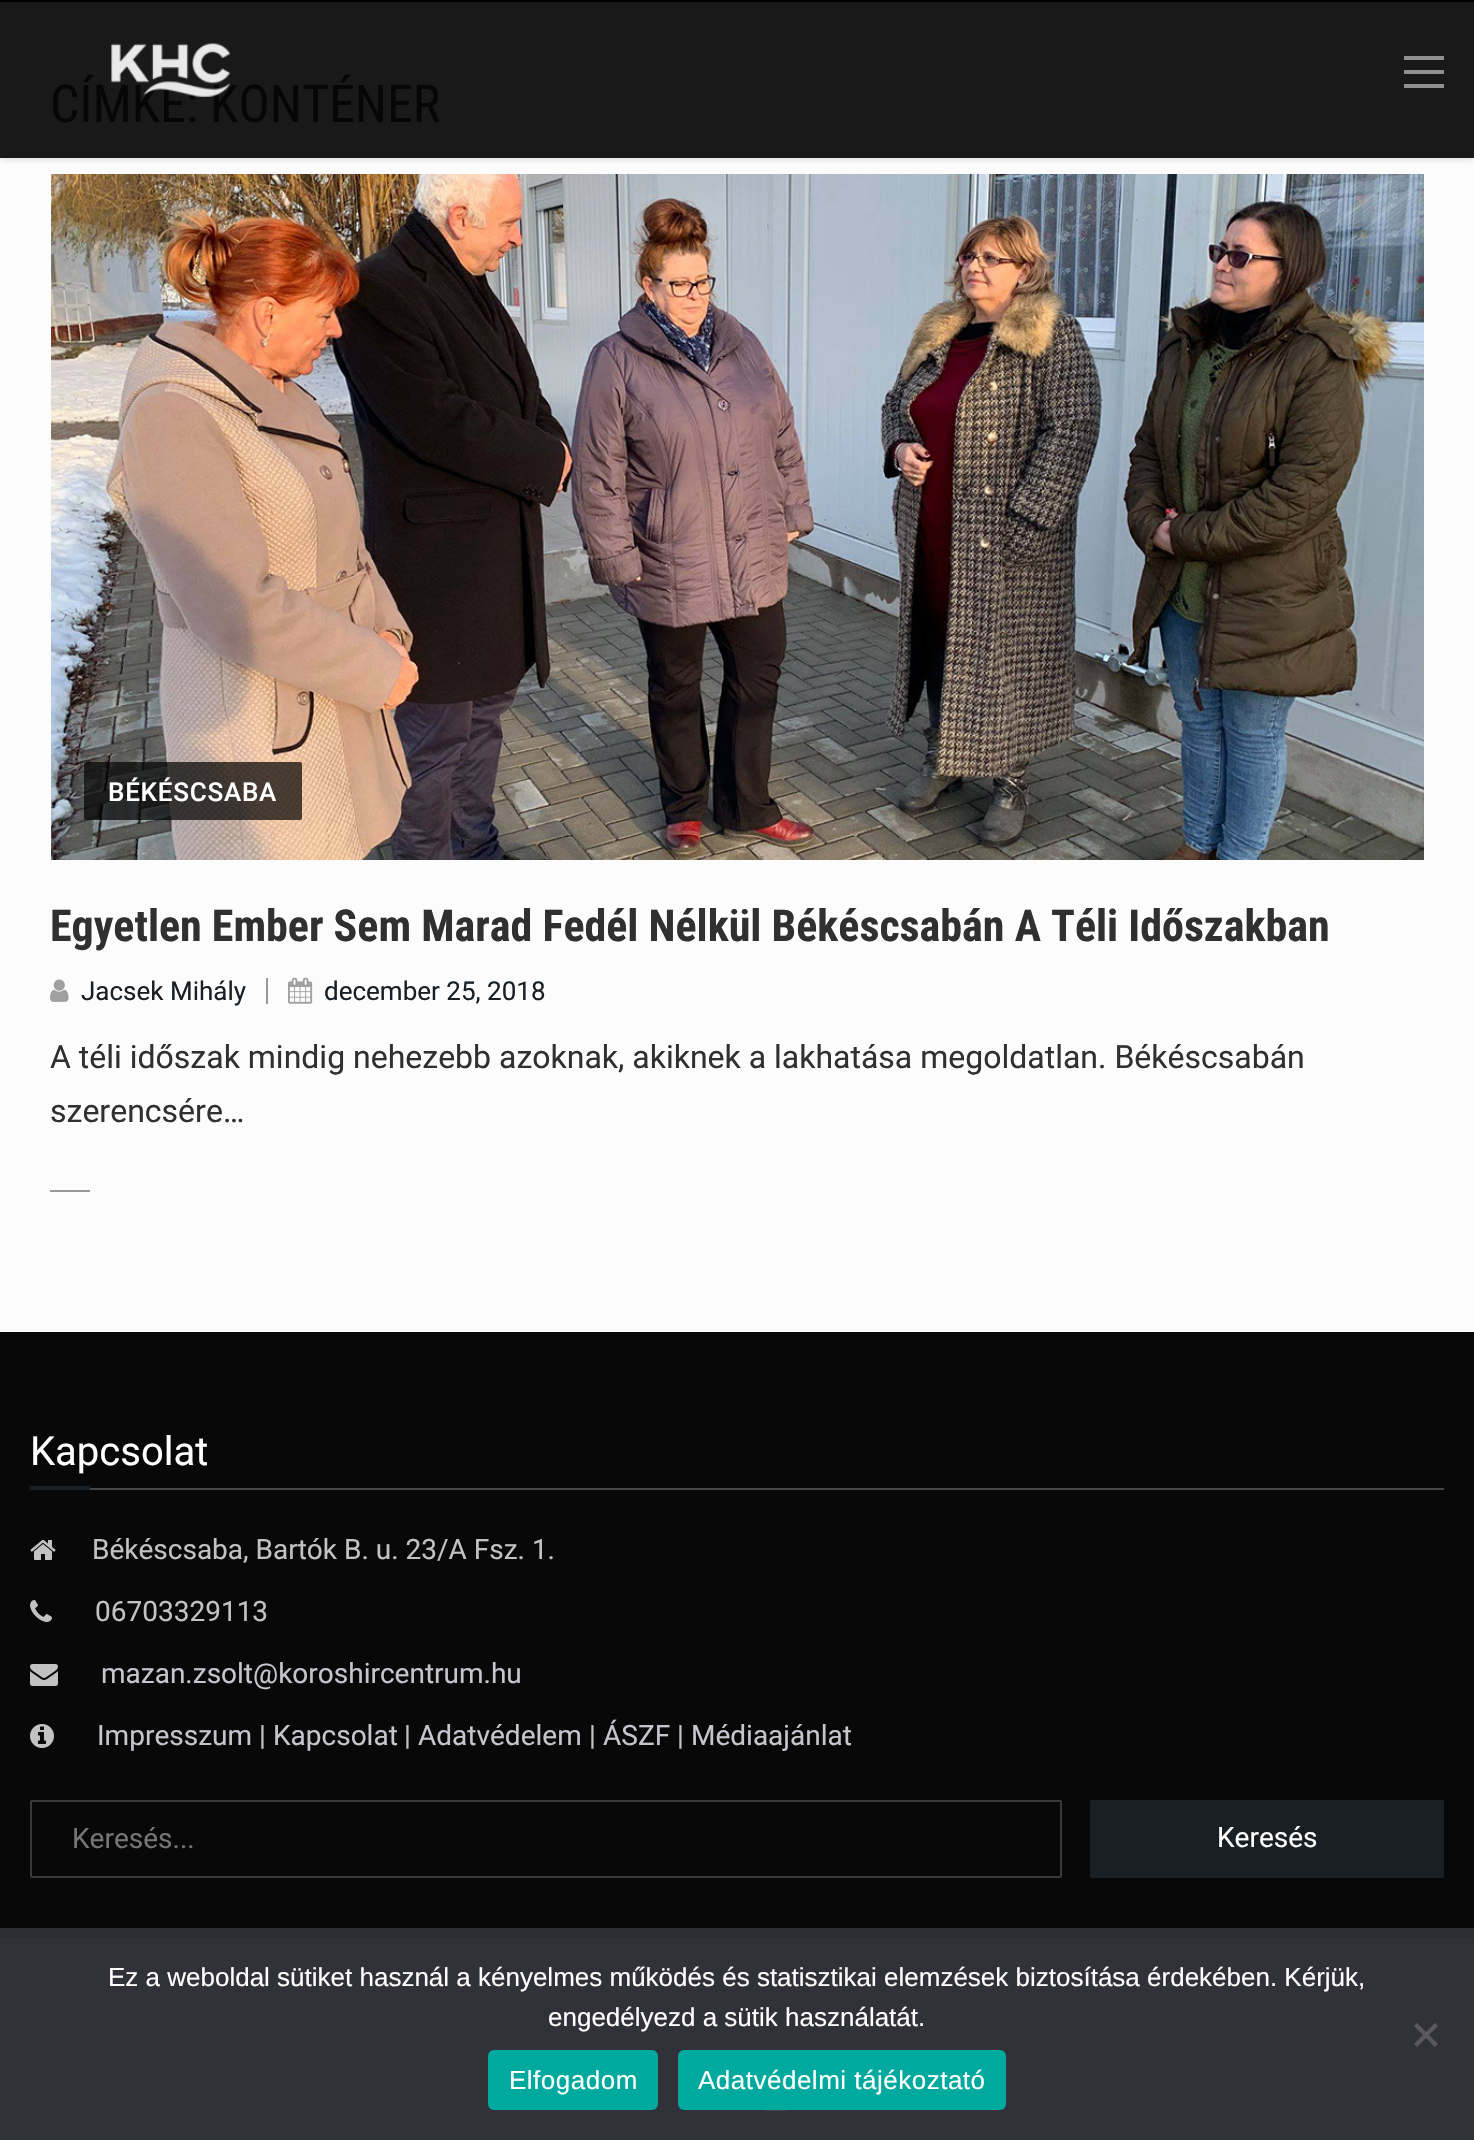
void draw(SkCanvas* canvas) {
    SkPaint paint;
    paint.setAntiAlias(true);
    auto face = [&](const char* family, int weight, float size, bool italic = false) {
        SkFontStyle style(weight, SkFontStyle::kNormal_Width,
            italic ? SkFontStyle::kItalic_Slant : SkFontStyle::kUpright_Slant);
        SkFont result(fontMgr->matchFamilyStyle(family, style), size);
        result.setSubpixel(true);
        return result;
    };
    auto write = [&](const char* s, float x, float y, const SkFont& font, SkColor color) {
        SkPaint ink(SkColor4f::FromColor(color));
        ink.setAntiAlias(true);
        canvas->drawString(s, x, y, font, ink);
    };
    auto writeSpaced = [&](const char* s, float x, float y, const SkFont& font, const SkPaint& ink, float letter, float word) {
        std::vector<SkGlyphID> glyphs(font.countText(s, strlen(s), SkTextEncoding::kUTF8));
        std::vector<float> xs(glyphs.size());
        font.textToGlyphs(s, strlen(s), SkTextEncoding::kUTF8, glyphs);
        font.getXPos(glyphs, xs, x);
        float extra = 0;
        for (size_t i = 0; i < glyphs.size(); i++) {
            xs[i] += extra;
            extra += letter + word * (glyphs[i] == font.unicharToGlyph(' '));
        }
        canvas->drawTextBlob(SkTextBlob::MakeFromPosHGlyphs(glyphs, xs, y, font), 0, 0, ink);
    };
    auto block = [&](float x, float y, float w, float h, SkColor color) {
        SkPaint ink(SkColor4f::FromColor(color));
        ink.setAntiAlias(true);
        canvas->drawRect(SkRect::MakeXYWH(x, y, w, h), ink);
    };
    auto card = [&](float x, float y, float w, float h, float radius, SkColor color) {
        SkPaint ink(SkColor4f::FromColor(color));
        ink.setAntiAlias(true);
        canvas->drawRoundRect(SkRect::MakeXYWH(x, y, w, h), radius, radius, ink);
    };
    auto paste = [&](const char* path, float x, float y, float w, float h) {
        auto image = SkImages::DeferredFromEncodedData(SkData::MakeFromFileName(path));
        canvas->drawImageRect(image, SkRect::MakeXYWH(x, y, w, h), SkSamplingOptions());
    };
    canvas->clear(SkColorSetRGB(252, 252, 252));
    block(0, 4, 1474, 154, SkColorSetRGB(25, 25, 25));
    block(0, 0, 1474, 2, SK_ColorBLACK);
    block(0, 2, 1474, 2, SkColorSetRGB(23, 23, 23));
    canvas->save();
    canvas->clipRect(SkRect::MakeXYWH(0, 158, 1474, 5));
    paint.setColor(SkColorSetARGB(31, 25, 25, 25));
    paint.setMaskFilter(SkMaskFilter::MakeBlur(kNormal_SkBlurStyle, 3));
    canvas->drawRect(SkRect::MakeXYWH(0, 2, 1474, 158), paint);
    paint.setMaskFilter(nullptr);
    canvas->restore();
    auto kFont1 = face("Roboto Condensed", 400, 52);
    write("CÍMKE: KONTÉNER", 50, 122, kFont1, SkColorSetRGB(6, 6, 6));
    paste("pic1.png", 111, 43, 119, 54);
    block(1404, 56, 40, 4, SkColorSetRGB(144, 144, 144));
    block(1404, 70, 40, 4, SkColorSetRGB(144, 144, 144));
    block(1404, 84, 40, 4, SkColorSetRGB(144, 144, 144));
    paste("pic2.png", 51, 174, 1373, 686);
    card(84, 762, 218, 58, 2, SkColorSetARGB(179, 0, 0, 0));
    auto kFont2 = face("Roboto", 500, 26);
    paint.setColor(SK_ColorWHITE);
    writeSpaced("BÉKÉSCSABA", 108, 801, kFont2, paint, 0.75f, 0);
    auto kFont3 = face("Roboto Condensed", 700, 44);
    write("Egyetlen Ember Sem Marad Fedél Nélkül Békéscsabán A Téli Időszakban", 50, 941, kFont3, SkColorSetRGB(48, 48, 48));
    paste("pic3.png", 50, 979, 19, 23);
    auto kFont4 = face("Roboto", 400, 26);
    write("Jacsek Mihály", 81, 1000, kFont4, SkColorSetRGB(24, 31, 37));
    block(266, 978, 2, 26, SkColorSetRGB(153, 153, 153));
    paste("pic4.png", 288, 977, 25, 27);
    write("december 25, 2018", 324, 1000, kFont4, SkColorSetRGB(24, 31, 37));
    auto kFont5 = face("Roboto", 400, 32);
    write("A téli időszak mindig nehezebb azoknak, akiknek a lakhatása megoldatlan. Békéscsabán", 50, 1068, kFont5, SkColorSetRGB(48, 48, 48));
    write("szerencsére…", 50, 1122, kFont5, SkColorSetRGB(48, 48, 48));
    block(50, 1190, 40, 2, SkColorSetRGB(153, 153, 153));
    block(0, 1332, 1474, 596, SkColorSetRGB(8, 8, 8));
    block(0, 1928, 1474, 10, SkColorSetRGB(44, 44, 51));
    auto kFont6 = face("Roboto", 400, 40);
    write("Kapcsolat", 30, 1465, kFont6, SK_ColorWHITE);
    block(30, 1486, 60, 4, SkColorSetRGB(24, 31, 37));
    block(90, 1488, 1354, 2, SkColorSetRGB(71, 71, 71));
    paste("pic5.png", 30, 1540, 26, 20);
    auto kFont7 = face("Roboto", 400, 28);
    write("Békéscsaba, Bartók B. u. 23/A Fsz. 1.", 92, 1559, kFont7, SkColorSetRGB(194, 194, 194));
    paste("pic6.png", 30, 1600, 22, 22);
    write("06703329113", 95, 1621, kFont7, SkColorSetRGB(194, 194, 194));
    paste("pic7.png", 30, 1664, 28, 22);
    write("mazan.zsolt@koroshircentrum.hu", 101, 1683, kFont7, SkColorSetRGB(196, 197, 205));
    paste("pic8.png", 30, 1724, 24, 24);
    write("Impresszum", 97, 1745, kFont7, SkColorSetRGB(196, 197, 205));
    write("|", 259, 1745, kFont7, SkColorSetRGB(194, 194, 194));
    write("Kapcsolat", 273, 1745, kFont7, SkColorSetRGB(196, 197, 205));
    write("|", 404, 1745, kFont7, SkColorSetRGB(194, 194, 194));
    write("Adatvédelem", 418, 1745, kFont7, SkColorSetRGB(196, 197, 205));
    write("|", 589, 1745, kFont7, SkColorSetRGB(194, 194, 194));
    write("ÁSZF", 603, 1745, kFont7, SkColorSetRGB(196, 197, 205));
    write("|", 677, 1745, kFont7, SkColorSetRGB(194, 194, 194));
    write("Médiaajánlat", 691, 1745, kFont7, SkColorSetRGB(196, 197, 205));
    paint.setStyle(SkPaint::kStroke_Style);
    paint.setStrokeWidth(2);
    paint.setColor(SkColorSetRGB(57, 57, 57));
    canvas->drawRoundRect(SkRect::MakeXYWH(31, 1801, 1030, 76), 1, 1, paint);
    write("Keresés...", 72, 1848, kFont7, SkColorSetRGB(117, 117, 117));
    card(1090, 1800, 354, 78, 2, SkColorSetRGB(24, 31, 37));
    write("Keresés", 1217, 1847, kFont7, SK_ColorWHITE);
    block(0, 1938, 1474, 202, SkColorSetRGB(49, 49, 58));
    paste("pic9.png", 762, 2110, 28, 2);
    auto kFont8 = face("Liberation Sans", 400, 26);
    write("Ez a weboldal sütiket használ a kényelmes működés és statisztikai elemzések biztosítása érdekében. Kérjük,", 108, 1986, kFont8, SK_ColorWHITE);
    write("engedélyezd a sütik használatát.", 548, 2026, kFont8, SK_ColorWHITE);
    paint.setStyle(SkPaint::kFill_Style);
    paint.setColor(SkColorSetRGB(89, 89, 93));
    canvas->drawPath(SkPathBuilder().moveTo(1435, 2023).lineTo(1438, 2026).lineTo(1417, 2047).lineTo(1414, 2044).close().detach(), paint);
    canvas->drawPath(SkPathBuilder().moveTo(1414, 2026).lineTo(1417, 2023).lineTo(1438, 2044).lineTo(1435, 2047).close().detach(), paint);
    card(488, 2050, 170, 60, 6, SkColorSetRGB(0, 169, 157));
    paint.setColor(SK_ColorWHITE);
    writeSpaced("Elfogadom", 509, 2089, kFont8, paint, 0.5f, 0);
    card(678, 2050, 328, 60, 6, SkColorSetRGB(0, 169, 157));
    writeSpaced("Adatvédelmi tájékoztató", 698, 2089, kFont8, paint, 0.5f, 0);
}
